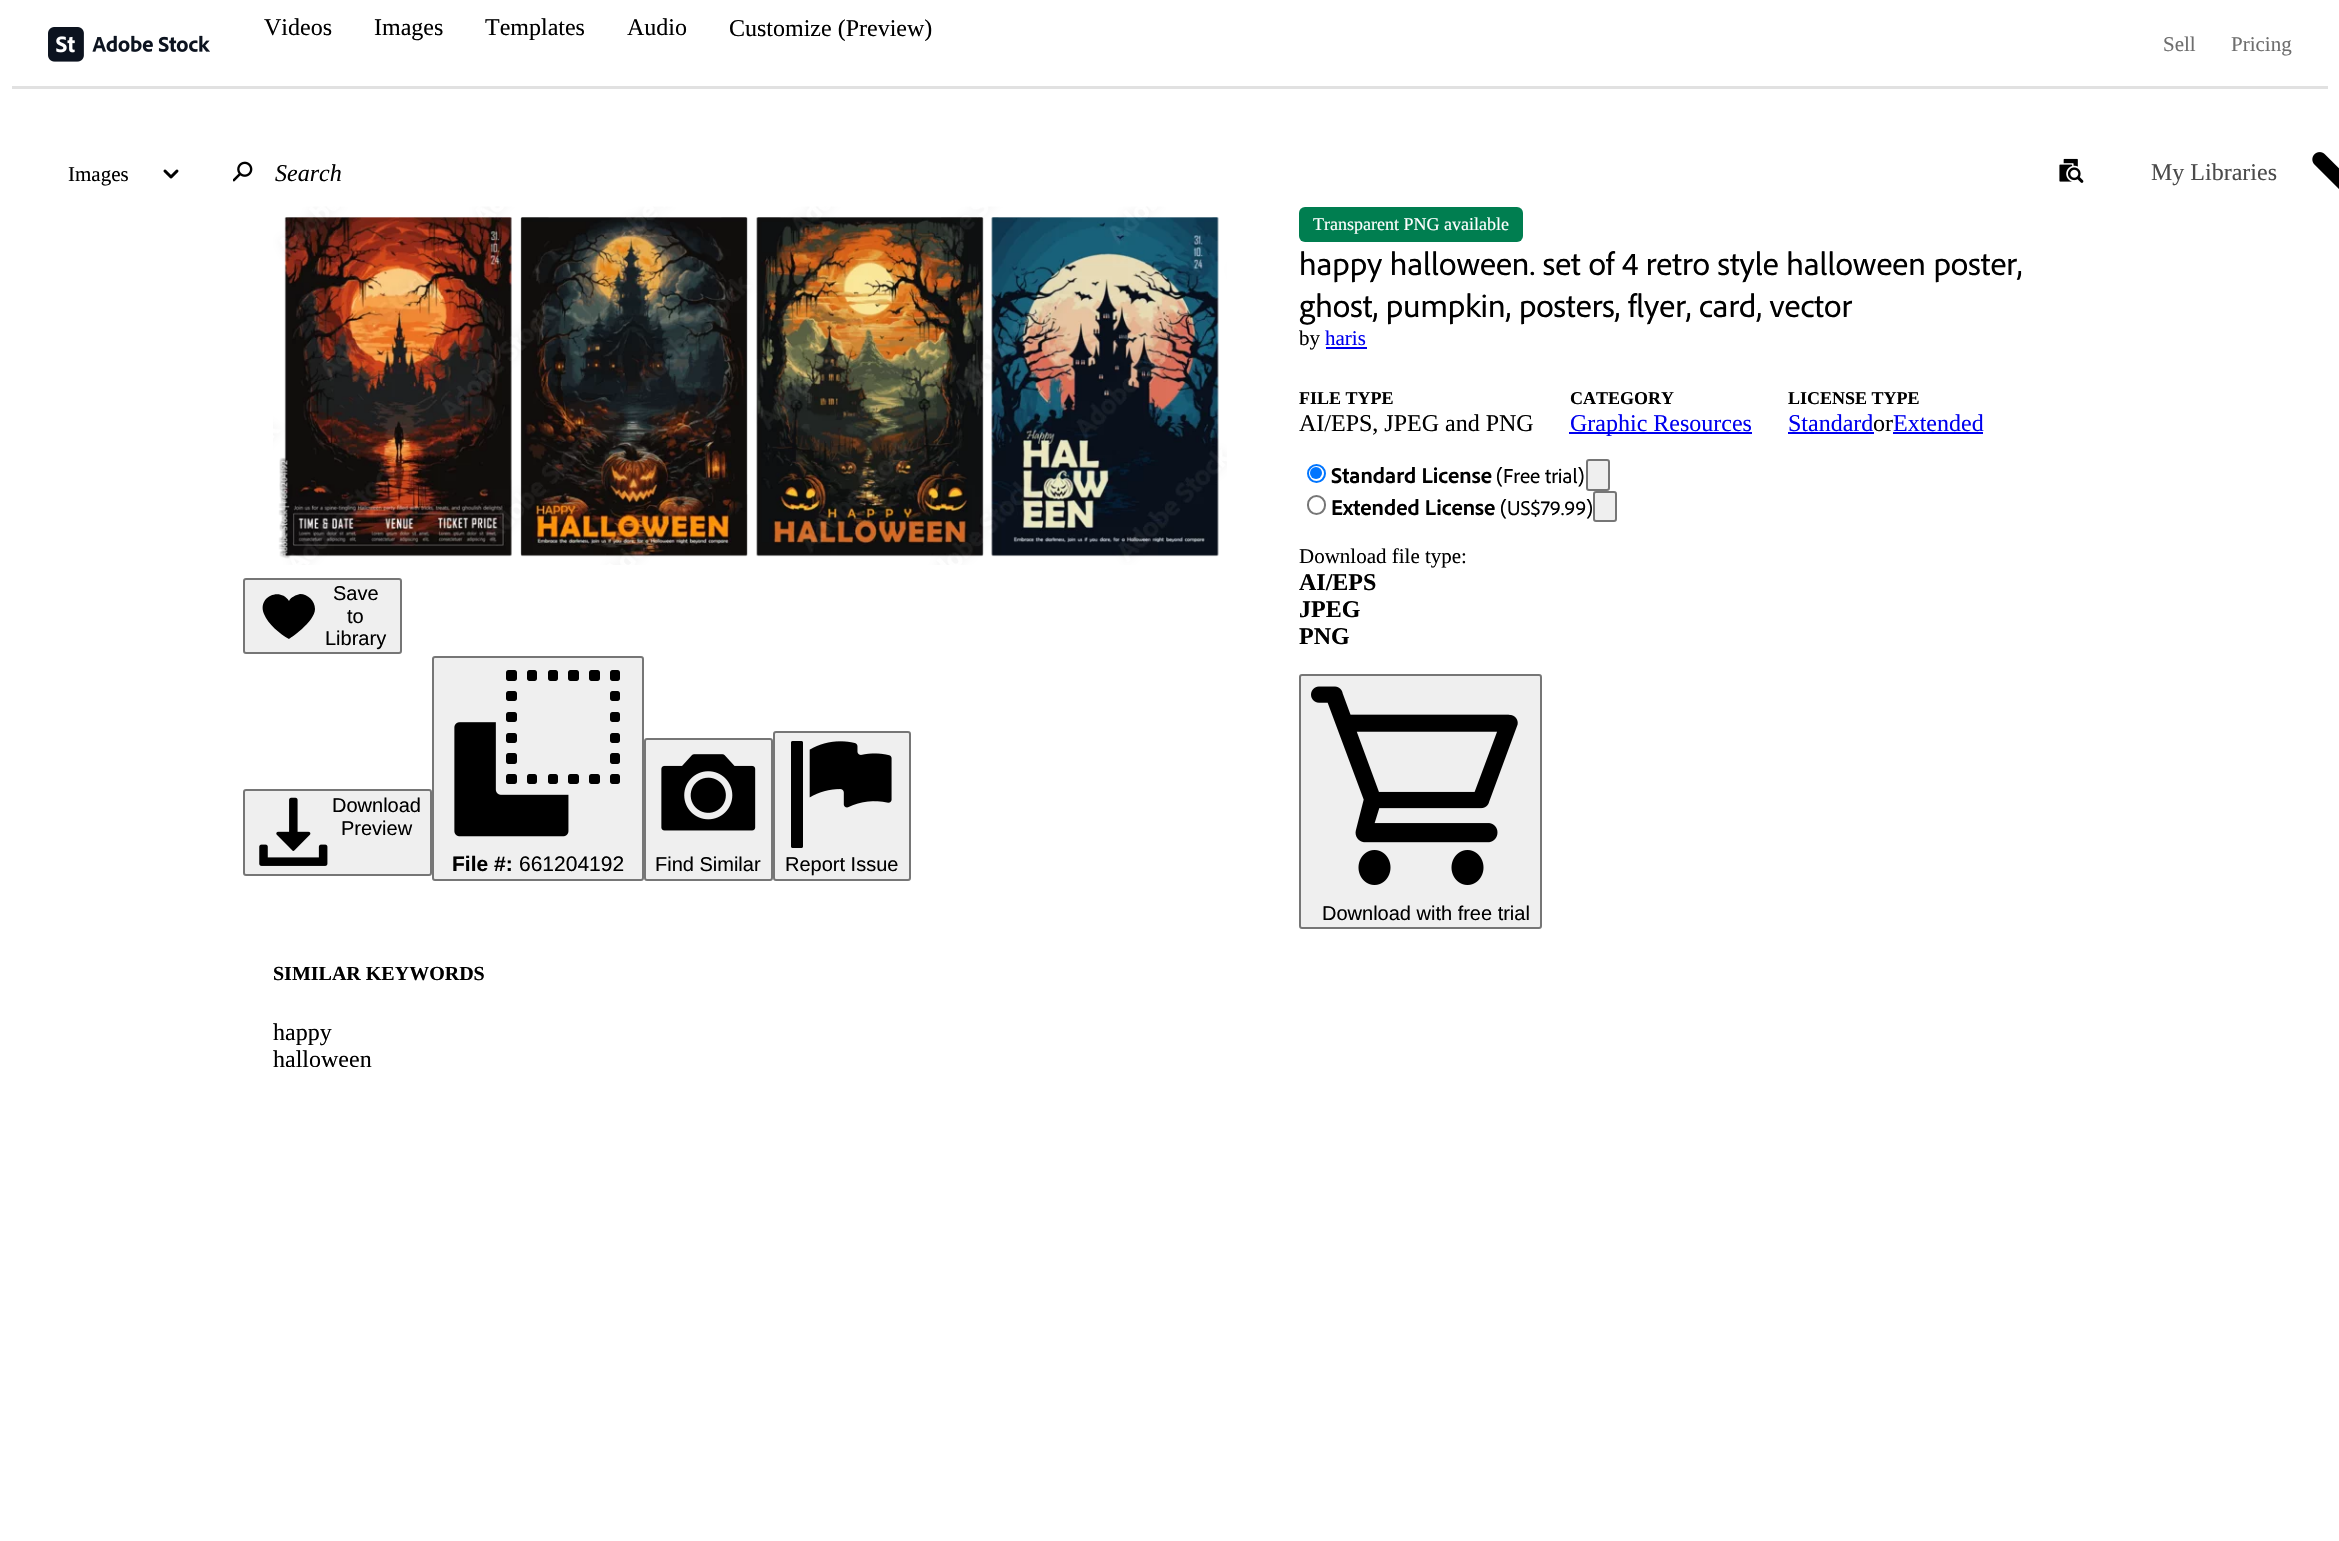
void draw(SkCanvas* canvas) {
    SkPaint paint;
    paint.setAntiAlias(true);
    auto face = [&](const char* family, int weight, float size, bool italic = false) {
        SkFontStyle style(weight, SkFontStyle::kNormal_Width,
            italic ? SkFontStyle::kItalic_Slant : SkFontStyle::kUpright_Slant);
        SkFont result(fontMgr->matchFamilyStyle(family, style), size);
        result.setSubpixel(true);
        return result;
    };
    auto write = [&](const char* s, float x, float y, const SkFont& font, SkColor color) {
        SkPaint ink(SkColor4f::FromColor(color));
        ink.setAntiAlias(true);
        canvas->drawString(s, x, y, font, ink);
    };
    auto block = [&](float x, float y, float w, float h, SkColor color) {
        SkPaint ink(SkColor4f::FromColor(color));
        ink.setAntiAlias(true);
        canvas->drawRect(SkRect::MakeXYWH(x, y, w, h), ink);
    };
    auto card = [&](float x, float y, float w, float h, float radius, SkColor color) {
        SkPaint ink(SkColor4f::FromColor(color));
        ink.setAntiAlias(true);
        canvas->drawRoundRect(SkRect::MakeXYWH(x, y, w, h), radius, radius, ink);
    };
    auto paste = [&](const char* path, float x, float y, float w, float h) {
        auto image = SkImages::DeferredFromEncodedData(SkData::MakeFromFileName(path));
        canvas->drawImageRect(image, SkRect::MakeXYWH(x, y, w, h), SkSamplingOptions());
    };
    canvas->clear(SK_ColorWHITE);
    block(12, 86, 2316, 3, SkColorSetRGB(225, 225, 225));
    paste("pic1.png", 48, 27, 162, 35);
    auto kFont1 = face("Liberation Serif", 400, 24);
    write("Videos", 264, 35, kFont1, SK_ColorBLACK);
    write("Images", 374, 35, kFont1, SK_ColorBLACK);
    write("Templates", 485, 35, kFont1, SK_ColorBLACK);
    write("Audio", 627, 35, kFont1, SK_ColorBLACK);
    write("Customize (Preview)", 729, 36, kFont1, SK_ColorBLACK);
    auto kFont2 = face("Liberation Serif", 400, 21);
    write("Sell", 2163, 51, kFont2, SkColorSetRGB(110, 110, 110));
    write("Pricing", 2231, 51, kFont2, SkColorSetRGB(110, 110, 110));
    write("Images", 68, 181, kFont2, SK_ColorBLACK);
    paste("pic2.png", 163, 169, 16, 10);
    paste("pic3.png", 233, 161, 20, 21);
    auto kFont3 = face("Liberation Serif", 400, 24, true);
    write("Search", 275, 181, kFont3, SK_ColorBLACK);
    paste("pic4.png", 2059, 158, 25, 25);
    write("My Libraries", 2151, 180, kFont1, SkColorSetRGB(75, 75, 75));
    paste("pic5.png", 2312, 152, 27, 37);
    paste("pic6.png", 273, 206, 954, 359);
    paint.setColor(SkColorSetRGB(239, 239, 239));
    canvas->drawRoundRect(SkRect::MakeXYWH(244, 579, 157, 74), 2, 2, paint);
    paint.setStyle(SkPaint::kStroke_Style);
    paint.setStrokeWidth(2);
    paint.setColor(SkColorSetRGB(118, 118, 118));
    canvas->drawRoundRect(SkRect::MakeXYWH(244, 579, 157, 74), 2, 2, paint);
    paint.setStyle(SkPaint::kFill_Style);
    paint.setColor(SK_ColorBLACK);
    canvas->drawPath(SkPathBuilder(SkPathFillType::kEvenOdd).moveTo(300, 594).cubicTo(296, 595, 291, 597, 289, 601).cubicTo(280, 587, 257, 597, 264, 614).cubicTo(268, 624, 280, 634, 289, 639).cubicTo(289, 639, 315, 622, 315, 609).cubicTo(315, 601, 308, 594, 300, 594).close().detach(), paint);
    auto kFont4 = face("Liberation Sans", 400, 20);
    write("Save", 333, 600, kFont4, SK_ColorBLACK);
    write("to", 347, 623, kFont4, SK_ColorBLACK);
    write("Library", 325, 645, kFont4, SK_ColorBLACK);
    paint.setColor(SkColorSetRGB(239, 239, 239));
    canvas->drawRoundRect(SkRect::MakeXYWH(244, 790, 187, 85), 2, 2, paint);
    paint.setStyle(SkPaint::kStroke_Style);
    paint.setColor(SkColorSetRGB(118, 118, 118));
    canvas->drawRoundRect(SkRect::MakeXYWH(244, 790, 187, 85), 2, 2, paint);
    paste("pic7.png", 259, 797, 69, 69);
    write("Download", 332, 812, kFont4, SK_ColorBLACK);
    write("Preview", 341, 835, kFont4, SK_ColorBLACK);
    paint.setStyle(SkPaint::kFill_Style);
    paint.setColor(SkColorSetRGB(239, 239, 239));
    canvas->drawRoundRect(SkRect::MakeXYWH(433, 657, 210, 223), 2, 2, paint);
    paint.setStyle(SkPaint::kStroke_Style);
    paint.setColor(SkColorSetRGB(118, 118, 118));
    canvas->drawRoundRect(SkRect::MakeXYWH(433, 657, 210, 223), 2, 2, paint);
    paste("pic8.png", 454, 670, 166, 167);
    auto kFont5 = face("Liberation Sans", 700, 21);
    write("File #:", 452, 871, kFont5, SK_ColorBLACK);
    auto kFont6 = face("Liberation Sans", 400, 21);
    write("661204192", 519, 871, kFont6, SK_ColorBLACK);
    paint.setStyle(SkPaint::kFill_Style);
    paint.setColor(SkColorSetRGB(239, 239, 239));
    canvas->drawRoundRect(SkRect::MakeXYWH(645, 739, 127, 141), 2, 2, paint);
    paint.setStyle(SkPaint::kStroke_Style);
    paint.setColor(SkColorSetRGB(118, 118, 118));
    canvas->drawRoundRect(SkRect::MakeXYWH(645, 739, 127, 141), 2, 2, paint);
    paste("pic9.png", 661, 754, 95, 77);
    write("Find Similar", 655, 871, kFont4, SK_ColorBLACK);
    paint.setStyle(SkPaint::kFill_Style);
    paint.setColor(SkColorSetRGB(239, 239, 239));
    canvas->drawRoundRect(SkRect::MakeXYWH(774, 732, 136, 148), 2, 2, paint);
    paint.setStyle(SkPaint::kStroke_Style);
    paint.setColor(SkColorSetRGB(118, 118, 118));
    canvas->drawRoundRect(SkRect::MakeXYWH(774, 732, 136, 148), 2, 2, paint);
    paste("pic10.png", 791, 741, 101, 107);
    write("Report Issue", 785, 871, kFont4, SK_ColorBLACK);
    card(1299, 207, 224, 35, 6, SkColorSetRGB(0, 126, 80));
    auto kFont7 = face("Liberation Serif", 400, 18);
    write("Transparent PNG available", 1313, 230, kFont7, SK_ColorWHITE);
    auto kFont8 = face("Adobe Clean", 400, 33);
    write("happy halloween. set of 4 retro style halloween poster,", 1299, 275, kFont8, SK_ColorBLACK);
    write("ghost, pumpkin, posters, flyer, card, vector", 1299, 317, kFont8, SK_ColorBLACK);
    write("by", 1299, 345, kFont2, SK_ColorBLACK);
    write("haris", 1325, 345, kFont2, SkColorSetRGB(0, 0, 238));
    block(1326, 347, 41, 2, SkColorSetRGB(0, 0, 238));
    auto kFont9 = face("Liberation Serif", 700, 18);
    write("FILE TYPE", 1299, 404, kFont9, SK_ColorBLACK);
    write("AI/EPS, JPEG and PNG", 1299, 431, kFont1, SK_ColorBLACK);
    write("CATEGORY", 1570, 404, kFont9, SK_ColorBLACK);
    block(1569, 432, 183, 2, SkColorSetRGB(0, 0, 238));
    write("Graphic Resources", 1570, 431, kFont1, SkColorSetRGB(0, 0, 238));
    write("LICENSE TYPE", 1788, 404, kFont9, SK_ColorBLACK);
    write("Standard", 1788, 431, kFont1, SkColorSetRGB(0, 0, 238));
    write("or", 1873, 431, kFont1, SK_ColorBLACK);
    block(1788, 432, 86, 2, SkColorSetRGB(0, 0, 238));
    block(1893, 432, 90, 2, SkColorSetRGB(0, 0, 238));
    write("Extended", 1893, 431, kFont1, SkColorSetRGB(0, 0, 238));
    paint.setColor(SkColorSetRGB(0, 117, 255));
    canvas->drawCircle(1316.5f, 473.5f, 8.5f, paint);
    paint.setStyle(SkPaint::kFill_Style);
    canvas->drawCircle(1316, 473, 6, paint);
    auto kFont10 = face("Adobe Clean", 700, 22.5f);
    write("Standard License", 1331, 483, kFont10, SK_ColorBLACK);
    auto kFont11 = face("Adobe Clean", 400, 21);
    write("(Free trial)", 1496, 483, kFont11, SK_ColorBLACK);
    paint.setColor(SkColorSetRGB(239, 239, 239));
    canvas->drawRoundRect(SkRect::MakeXYWH(1587, 460, 22, 30), 2, 2, paint);
    paint.setStyle(SkPaint::kStroke_Style);
    paint.setColor(SkColorSetRGB(118, 118, 118));
    canvas->drawRoundRect(SkRect::MakeXYWH(1587, 460, 22, 30), 2, 2, paint);
    canvas->drawRoundRect(SkRect::MakeXYWH(1308, 496, 17, 18), 8.5f, 8.5f, paint);
    write("Extended License", 1331, 515, kFont10, SK_ColorBLACK);
    write("(US$79.99)", 1500, 515, kFont11, SK_ColorBLACK);
    paint.setStyle(SkPaint::kFill_Style);
    paint.setColor(SkColorSetRGB(239, 239, 239));
    canvas->drawRoundRect(SkRect::MakeXYWH(1594, 492, 22, 29), 2, 2, paint);
    paint.setStyle(SkPaint::kStroke_Style);
    paint.setColor(SkColorSetRGB(118, 118, 118));
    canvas->drawRoundRect(SkRect::MakeXYWH(1594, 492, 22, 29), 2, 2, paint);
    write("Download file type:", 1299, 563, kFont2, SK_ColorBLACK);
    auto kFont12 = face("Liberation Serif", 700, 24);
    write("AI/EPS", 1299, 590, kFont12, SK_ColorBLACK);
    write("JPEG", 1299, 617, kFont12, SK_ColorBLACK);
    write("PNG", 1299, 644, kFont12, SK_ColorBLACK);
    paint.setStyle(SkPaint::kFill_Style);
    paint.setColor(SkColorSetRGB(239, 239, 239));
    canvas->drawRoundRect(SkRect::MakeXYWH(1300, 675, 241, 253), 2, 2, paint);
    paint.setStyle(SkPaint::kStroke_Style);
    paint.setColor(SkColorSetRGB(118, 118, 118));
    canvas->drawRoundRect(SkRect::MakeXYWH(1300, 675, 241, 253), 2, 2, paint);
    paste("pic11.png", 1311, 686, 207, 199);
    write("Download with free trial", 1322, 920, kFont4, SK_ColorBLACK);
    auto kFont13 = face("Liberation Serif", 700, 20);
    write("SIMILAR KEYWORDS", 273, 980, kFont13, SK_ColorBLACK);
    write("happy", 273, 1040, kFont1, SK_ColorBLACK);
    canvas->save();
    canvas->clipRect(SkRect::MakeXYWH(273, 1019, 1794, 48));
    write("halloween", 273, 1067, kFont1, SK_ColorBLACK);
    canvas->restore();
}
